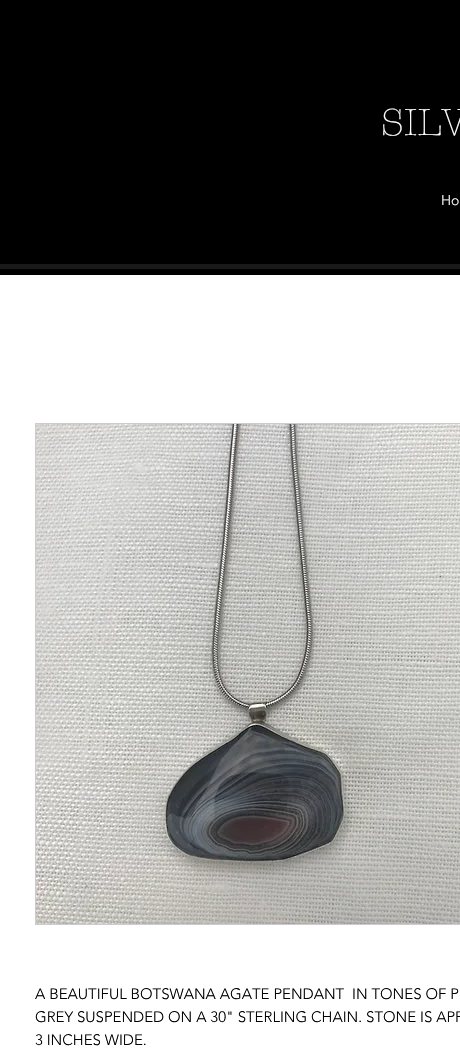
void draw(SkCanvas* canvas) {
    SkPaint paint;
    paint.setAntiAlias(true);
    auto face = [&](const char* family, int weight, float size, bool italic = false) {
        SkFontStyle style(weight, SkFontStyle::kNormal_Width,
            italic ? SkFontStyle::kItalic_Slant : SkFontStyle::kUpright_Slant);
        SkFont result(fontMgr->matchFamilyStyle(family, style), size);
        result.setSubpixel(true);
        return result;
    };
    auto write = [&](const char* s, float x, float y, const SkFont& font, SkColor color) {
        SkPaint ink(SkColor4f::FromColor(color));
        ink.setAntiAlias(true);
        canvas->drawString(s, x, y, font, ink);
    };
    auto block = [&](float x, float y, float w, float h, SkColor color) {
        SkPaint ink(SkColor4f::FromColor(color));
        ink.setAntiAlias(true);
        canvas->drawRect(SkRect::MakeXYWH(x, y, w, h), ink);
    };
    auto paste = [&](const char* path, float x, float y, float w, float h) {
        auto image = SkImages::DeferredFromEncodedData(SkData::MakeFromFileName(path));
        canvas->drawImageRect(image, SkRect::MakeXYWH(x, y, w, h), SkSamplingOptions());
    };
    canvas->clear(SK_ColorWHITE);
    block(0, 0, 460, 275, SK_ColorBLACK);
    auto kFont1 = face("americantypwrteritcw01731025", 300, 38);
    write("SILV", 381, 135, kFont1, SK_ColorWHITE);
    auto kFont2 = face("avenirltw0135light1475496", 300, 14);
    write("Ho", 441, 205, kFont2, SK_ColorWHITE);
    block(0, 264, 460, 5, SkColorSetRGB(25, 25, 25));
    paint.setStyle(SkPaint::kStroke_Style);
    paint.setStrokeWidth(1);
    paint.setColor(SkColorSetRGB(204, 204, 204));
    canvas->drawRect(SkRect::MakeXYWH(35.5f, 423.5f, 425, 501), paint);
    paste("pic1.png", 36, 424, 424, 500);
    auto kFont3 = face("avenirltw0135light1475496", 300, 15);
    write("A BEAUTIFUL BOTSWANA AGATE PENDANT  IN TONES OF P", 35, 999, kFont3, SK_ColorBLACK);
    write("GREY SUSPENDED ON A 30\" STERLING CHAIN. STONE IS APP", 35, 1022, kFont3, SK_ColorBLACK);
    write("3 INCHES WIDE.", 35, 1045, kFont3, SK_ColorBLACK);
}
